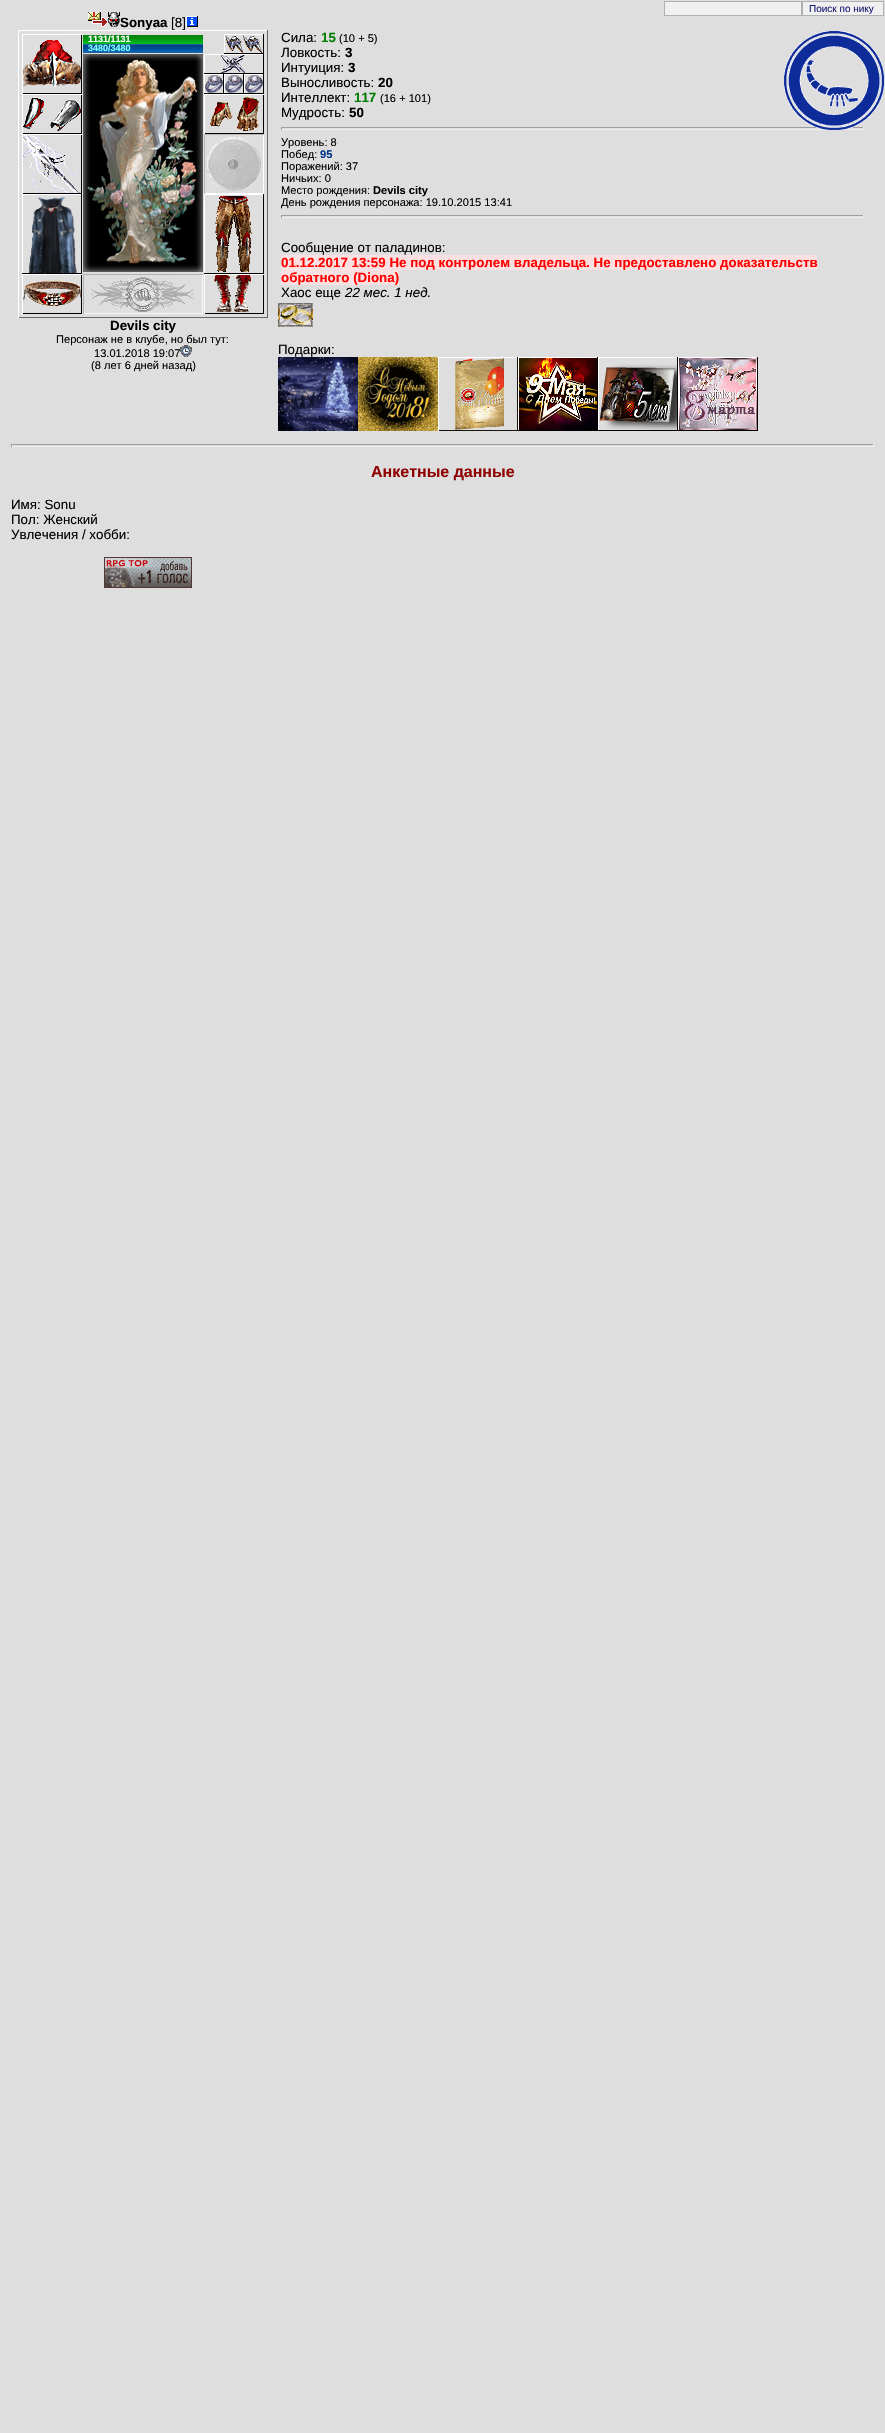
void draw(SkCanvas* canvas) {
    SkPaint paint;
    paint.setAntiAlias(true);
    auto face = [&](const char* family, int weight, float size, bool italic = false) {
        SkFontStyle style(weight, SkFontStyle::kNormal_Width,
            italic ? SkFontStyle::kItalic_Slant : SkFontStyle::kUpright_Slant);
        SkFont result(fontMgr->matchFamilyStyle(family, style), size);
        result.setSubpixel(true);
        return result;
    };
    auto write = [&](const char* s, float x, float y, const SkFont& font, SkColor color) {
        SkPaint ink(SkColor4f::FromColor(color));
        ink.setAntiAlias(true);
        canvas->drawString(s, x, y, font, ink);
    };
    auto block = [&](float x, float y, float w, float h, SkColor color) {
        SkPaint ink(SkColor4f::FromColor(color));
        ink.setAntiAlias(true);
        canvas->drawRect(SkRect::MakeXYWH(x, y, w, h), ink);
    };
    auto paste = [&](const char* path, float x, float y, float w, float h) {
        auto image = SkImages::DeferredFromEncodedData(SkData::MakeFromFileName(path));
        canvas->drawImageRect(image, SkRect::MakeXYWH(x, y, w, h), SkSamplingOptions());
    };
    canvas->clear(SkColorSetRGB(222, 222, 222));
    paint.setColor(SkColorSetRGB(240, 240, 240));
    canvas->drawRect(SkRect::MakeXYWH(664.5f, 1.5f, 137, 14), paint);
    paint.setStyle(SkPaint::kStroke_Style);
    paint.setStrokeWidth(1);
    paint.setColor(SkColorSetRGB(176, 176, 176));
    canvas->drawRect(SkRect::MakeXYWH(664.5f, 1.5f, 137, 14), paint);
    paint.setStyle(SkPaint::kFill_Style);
    paint.setColor(SkColorSetRGB(240, 240, 240));
    canvas->drawRect(SkRect::MakeXYWH(802.5f, 1.5f, 81, 14), paint);
    paint.setStyle(SkPaint::kStroke_Style);
    paint.setColor(SkColorSetRGB(176, 176, 176));
    canvas->drawRect(SkRect::MakeXYWH(802.5f, 1.5f, 81, 14), paint);
    auto kFont1 = face("Liberation Sans", 400, 10);
    write("Поиск по нику", 809, 12, kFont1, SkColorSetRGB(25, 25, 112));
    block(281, 127, 583, 1, SkColorSetRGB(159, 159, 159));
    block(863, 127, 1, 3, SkColorSetRGB(238, 238, 238));
    block(281, 129, 583, 1, SkColorSetRGB(238, 238, 238));
    paste("pic1.png", 784, 31, 100, 99);
    paste("pic2.png", 88, 12, 20, 15);
    paste("pic3.png", 108, 12, 12, 15);
    auto kFont2 = face("Liberation Sans", 700, 13.35f);
    write("Sonyaa", 120, 27, kFont2, SK_ColorBLACK);
    auto kFont3 = face("Liberation Sans", 400, 13.35f);
    write("[8]", 171, 27, kFont3, SK_ColorBLACK);
    paste("pic4.png", 186, 16, 12, 11);
    block(18, 30, 250, 1, SK_ColorWHITE);
    block(267, 30, 1, 288, SkColorSetRGB(102, 102, 102));
    block(18, 317, 250, 1, SkColorSetRGB(102, 102, 102));
    block(18, 30, 1, 288, SK_ColorWHITE);
    paste("pic5.png", 22, 34, 60, 60);
    paste("pic6.png", 22, 94, 60, 40);
    paste("pic7.png", 22, 134, 60, 60);
    paste("pic8.png", 22, 194, 60, 80);
    paste("pic9.png", 22, 274, 60, 40);
    paste("pic10.png", 83, 35, 120, 9);
    auto kFont4 = face("Liberation Sans", 700, 9);
    write("1131/1131", 88, 42, kFont4, SK_ColorWHITE);
    paste("pic11.png", 83, 44, 120, 9);
    write("3480/3480", 88, 51, kFont4, SkColorSetRGB(128, 255, 255));
    paste("pic12.png", 83, 54, 120, 218);
    paste("pic13.png", 83, 274, 120, 40);
    paste("pic14.png", 224, 34, 40, 20);
    paste("pic15.png", 204, 54, 60, 20);
    paste("pic16.png", 204, 74, 20, 20);
    paste("pic16.png", 224, 74, 20, 20);
    paste("pic16.png", 244, 74, 20, 20);
    paste("pic17.png", 204, 94, 60, 40);
    paste("pic18.png", 204, 134, 60, 60);
    paste("pic19.png", 204, 194, 60, 80);
    paste("pic20.png", 204, 274, 60, 40);
    write("Devils city", 110, 330, kFont2, SK_ColorBLACK);
    auto kFont5 = face("Liberation Sans", 400, 11.1f);
    write("Персонаж не в клубе, но был тут:", 56, 343, kFont5, SK_ColorBLACK);
    write("13.01.2018 19:07", 94, 357, kFont5, SK_ColorBLACK);
    paste("pic21.png", 180, 345, 12, 12);
    write("(8 лет 6 дней назад)", 91, 369, kFont5, SK_ColorBLACK);
    write("Сила:", 281, 42, kFont3, SK_ColorBLACK);
    write("15", 321, 42, kFont2, SkColorSetRGB(0, 124, 0));
    write("(10 + 5)", 339, 42, kFont5, SK_ColorBLACK);
    write("Ловкость:", 281, 57, kFont3, SK_ColorBLACK);
    write("3", 345, 57, kFont2, SK_ColorBLACK);
    write("Интуиция:", 281, 72, kFont3, SK_ColorBLACK);
    write("3", 348, 72, kFont2, SK_ColorBLACK);
    write("Выносливость:", 281, 87, kFont3, SK_ColorBLACK);
    write("20", 378, 87, kFont2, SK_ColorBLACK);
    write("Интеллект:", 281, 102, kFont3, SK_ColorBLACK);
    write("117", 354, 102, kFont2, SkColorSetRGB(0, 124, 0));
    write("(16 + 101)", 380, 102, kFont5, SK_ColorBLACK);
    write("Мудрость:", 281, 117, kFont3, SK_ColorBLACK);
    write("50", 349, 117, kFont2, SK_ColorBLACK);
    block(281, 127, 1, 3, SkColorSetRGB(159, 159, 159));
    write("Уровень: 8", 281, 146, kFont5, SK_ColorBLACK);
    write("Побед:", 281, 158, kFont5, SK_ColorBLACK);
    auto kFont6 = face("Liberation Sans", 700, 11.1f);
    write("95", 320, 158, kFont6, SkColorSetRGB(0, 51, 136));
    write("Поражений: 37", 281, 170, kFont5, SK_ColorBLACK);
    write("Ничьих: 0", 281, 182, kFont5, SK_ColorBLACK);
    write("Место рождения:", 281, 194, kFont5, SK_ColorBLACK);
    write("Devils city", 373, 194, kFont6, SK_ColorBLACK);
    write("День рождения персонажа: 19.10.2015 13:41", 281, 206, kFont5, SK_ColorBLACK);
    block(281, 215, 583, 1, SkColorSetRGB(159, 159, 159));
    block(863, 215, 1, 3, SkColorSetRGB(238, 238, 238));
    block(281, 217, 583, 1, SkColorSetRGB(238, 238, 238));
    block(281, 215, 1, 3, SkColorSetRGB(159, 159, 159));
    write("Сообщение от паладинов:", 281, 252, kFont3, SK_ColorBLACK);
    block(281, 255, 536, 15, SkColorSetRGB(250, 224, 224));
    write("01.12.2017 13:59 Не под контролем владельца. Не предоставлено доказательств", 281, 267, kFont2, SkColorSetRGB(255, 0, 0));
    block(281, 270, 118, 15, SkColorSetRGB(250, 224, 224));
    write("обратного (Diona)", 281, 282, kFont2, SkColorSetRGB(255, 0, 0));
    write("Хаос еще", 281, 297, kFont3, SK_ColorBLACK);
    auto kFont7 = face("Liberation Sans", 400, 13.35f, true);
    write("22 мес. 1 нед.", 345, 297, kFont7, SK_ColorBLACK);
    paste("pic22.png", 278, 303, 35, 24);
    write("Подарки:", 278, 354, kFont3, SK_ColorBLACK);
    paste("pic23.png", 278, 357, 80, 74);
    paste("pic24.png", 358, 357, 80, 74);
    paste("pic25.png", 438, 357, 80, 74);
    paste("pic26.png", 518, 357, 80, 74);
    paste("pic27.png", 598, 357, 80, 74);
    paste("pic28.png", 678, 357, 80, 74);
    block(11, 444, 863, 1, SkColorSetRGB(159, 159, 159));
    block(873, 444, 1, 3, SkColorSetRGB(238, 238, 238));
    block(11, 446, 863, 1, SkColorSetRGB(238, 238, 238));
    block(11, 444, 1, 3, SkColorSetRGB(159, 159, 159));
    auto kFont8 = face("Liberation Sans", 700, 16);
    write("Анкетные данные", 371, 477, kFont8, SkColorSetRGB(143, 0, 0));
    write("Имя: Sonu", 11, 509, kFont3, SK_ColorBLACK);
    write("Пол: Женский", 11, 524, kFont3, SK_ColorBLACK);
    write("Увлечения / хобби:", 11, 539, kFont3, SK_ColorBLACK);
    paste("pic29.png", 104, 557, 88, 31);
}
